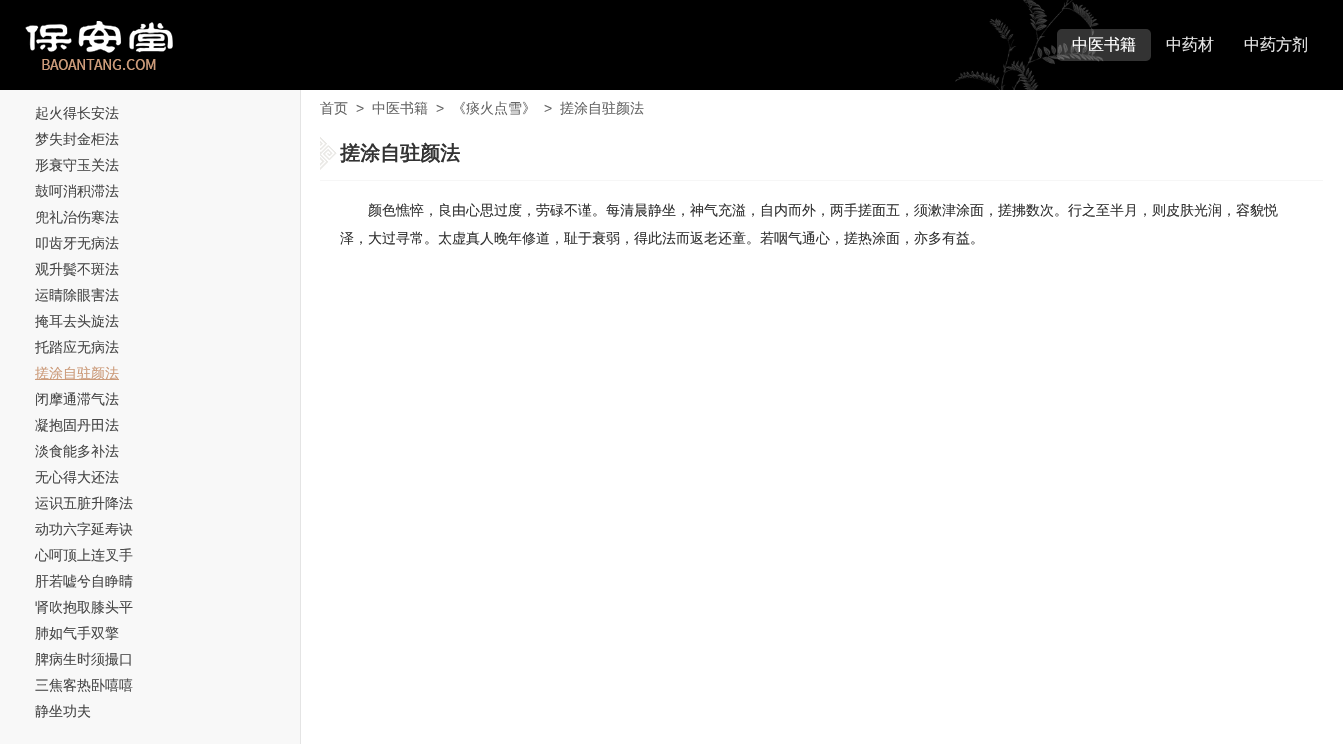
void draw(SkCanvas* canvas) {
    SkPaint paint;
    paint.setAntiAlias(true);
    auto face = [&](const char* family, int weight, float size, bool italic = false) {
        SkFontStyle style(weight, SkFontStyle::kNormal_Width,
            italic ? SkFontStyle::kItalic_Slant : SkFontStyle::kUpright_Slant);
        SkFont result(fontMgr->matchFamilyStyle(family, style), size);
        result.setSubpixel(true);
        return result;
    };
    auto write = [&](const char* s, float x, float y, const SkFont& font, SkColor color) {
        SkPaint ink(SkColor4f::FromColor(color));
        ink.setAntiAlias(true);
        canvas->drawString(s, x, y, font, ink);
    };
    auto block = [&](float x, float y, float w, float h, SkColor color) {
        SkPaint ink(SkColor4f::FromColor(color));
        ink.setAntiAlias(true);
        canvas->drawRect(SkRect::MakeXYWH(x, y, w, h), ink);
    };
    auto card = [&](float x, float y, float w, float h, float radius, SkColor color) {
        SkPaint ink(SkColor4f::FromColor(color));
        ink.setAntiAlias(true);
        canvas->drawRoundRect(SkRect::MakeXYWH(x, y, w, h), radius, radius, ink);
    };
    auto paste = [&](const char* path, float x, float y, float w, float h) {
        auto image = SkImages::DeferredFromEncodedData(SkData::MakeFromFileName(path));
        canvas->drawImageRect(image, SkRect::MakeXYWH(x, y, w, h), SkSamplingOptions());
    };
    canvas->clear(SK_ColorWHITE);
    block(0, 0, 1343, 90, SK_ColorBLACK);
    paste("pic1.png", 955, 0, 149, 90);
    paste("pic2.png", 25, 21, 148, 49);
    card(1057, 29, 94, 32, 5, SkColorSetARGB(51, 255, 255, 255));
    auto kFont1 = face("WenQuanYi Zen Hei", 500, 16);
    write("中医书籍", 1072, 50, kFont1, SK_ColorWHITE);
    write("中药材", 1166, 50, kFont1, SkColorSetRGB(230, 230, 230));
    write("中药方剂", 1244, 50, kFont1, SkColorSetRGB(230, 230, 230));
    block(0, 90, 300, 654, SkColorSetRGB(248, 248, 248));
    block(300, 90, 1, 654, SkColorSetRGB(228, 228, 228));
    auto kFont2 = face("WenQuanYi Zen Hei", 500, 14);
    write("起火得长安法", 35, 118, kFont2, SkColorSetRGB(72, 72, 72));
    write("梦失封金柜法", 35, 144, kFont2, SkColorSetRGB(72, 72, 72));
    write("形衰守玉关法", 35, 170, kFont2, SkColorSetRGB(72, 72, 72));
    write("鼓呵消积滞法", 35, 196, kFont2, SkColorSetRGB(72, 72, 72));
    write("兜礼治伤寒法", 35, 222, kFont2, SkColorSetRGB(72, 72, 72));
    write("叩齿牙无病法", 35, 248, kFont2, SkColorSetRGB(72, 72, 72));
    write("观升鬓不斑法", 35, 274, kFont2, SkColorSetRGB(72, 72, 72));
    write("运睛除眼害法", 35, 300, kFont2, SkColorSetRGB(72, 72, 72));
    write("掩耳去头旋法", 35, 326, kFont2, SkColorSetRGB(72, 72, 72));
    write("托踏应无病法", 35, 352, kFont2, SkColorSetRGB(72, 72, 72));
    block(35, 379, 84, 1, SkColorSetRGB(204, 155, 122));
    write("搓涂自驻颜法", 35, 378, kFont2, SkColorSetRGB(204, 155, 122));
    write("闭摩通滞气法", 35, 404, kFont2, SkColorSetRGB(72, 72, 72));
    write("凝抱固丹田法", 35, 430, kFont2, SkColorSetRGB(72, 72, 72));
    write("淡食能多补法", 35, 456, kFont2, SkColorSetRGB(72, 72, 72));
    write("无心得大还法", 35, 482, kFont2, SkColorSetRGB(72, 72, 72));
    write("运识五脏升降法", 35, 508, kFont2, SkColorSetRGB(72, 72, 72));
    write("动功六字延寿诀", 35, 534, kFont2, SkColorSetRGB(72, 72, 72));
    write("心呵顶上连叉手", 35, 560, kFont2, SkColorSetRGB(72, 72, 72));
    write("肝若嘘兮自睁睛", 35, 586, kFont2, SkColorSetRGB(72, 72, 72));
    write("肾吹抱取膝头平", 35, 612, kFont2, SkColorSetRGB(72, 72, 72));
    write("肺如气手双擎", 35, 638, kFont2, SkColorSetRGB(72, 72, 72));
    write("脾病生时须撮口", 35, 664, kFont2, SkColorSetRGB(72, 72, 72));
    write("三焦客热卧嘻嘻", 35, 690, kFont2, SkColorSetRGB(72, 72, 72));
    write("静坐功夫", 35, 716, kFont2, SkColorSetRGB(72, 72, 72));
    write("首页", 320, 113, kFont2, SkColorSetRGB(102, 102, 102));
    auto kFont3 = face("Liberation Sans", 400, 14);
    write(">", 356, 113, kFont3, SkColorSetRGB(102, 102, 102));
    write("中医书籍", 372, 113, kFont2, SkColorSetRGB(102, 102, 102));
    write(">", 436, 113, kFont3, SkColorSetRGB(102, 102, 102));
    write("《痰火点雪》", 452, 113, kFont2, SkColorSetRGB(102, 102, 102));
    write(">", 544, 113, kFont3, SkColorSetRGB(102, 102, 102));
    write("搓涂自驻颜法", 560, 113, kFont2, SkColorSetRGB(102, 102, 102));
    paste("pic3.png", 320, 137, 17, 33);
    block(320, 180, 1003, 1, SkColorSetRGB(246, 246, 246));
    auto kFont4 = face("WenQuanYi Zen Hei", 700, 20);
    write("搓涂自驻颜法", 340, 160, kFont4, SkColorSetRGB(51, 51, 51));
    write("颜色憔悴，良由心思过度，劳碌不谨。每清晨静坐，神气充溢，自内而外，两手搓面五，须漱津涂面，搓拂数次。行之至半月，则皮肤光润，容貌悦", 368, 215, kFont2, SkColorSetRGB(51, 51, 51));
    write("泽，大过寻常。太虚真人晚年修道，耻于衰弱，得此法而返老还童。若咽气通心，搓热涂面，亦多有益。", 340, 243, kFont2, SkColorSetRGB(51, 51, 51));
}
